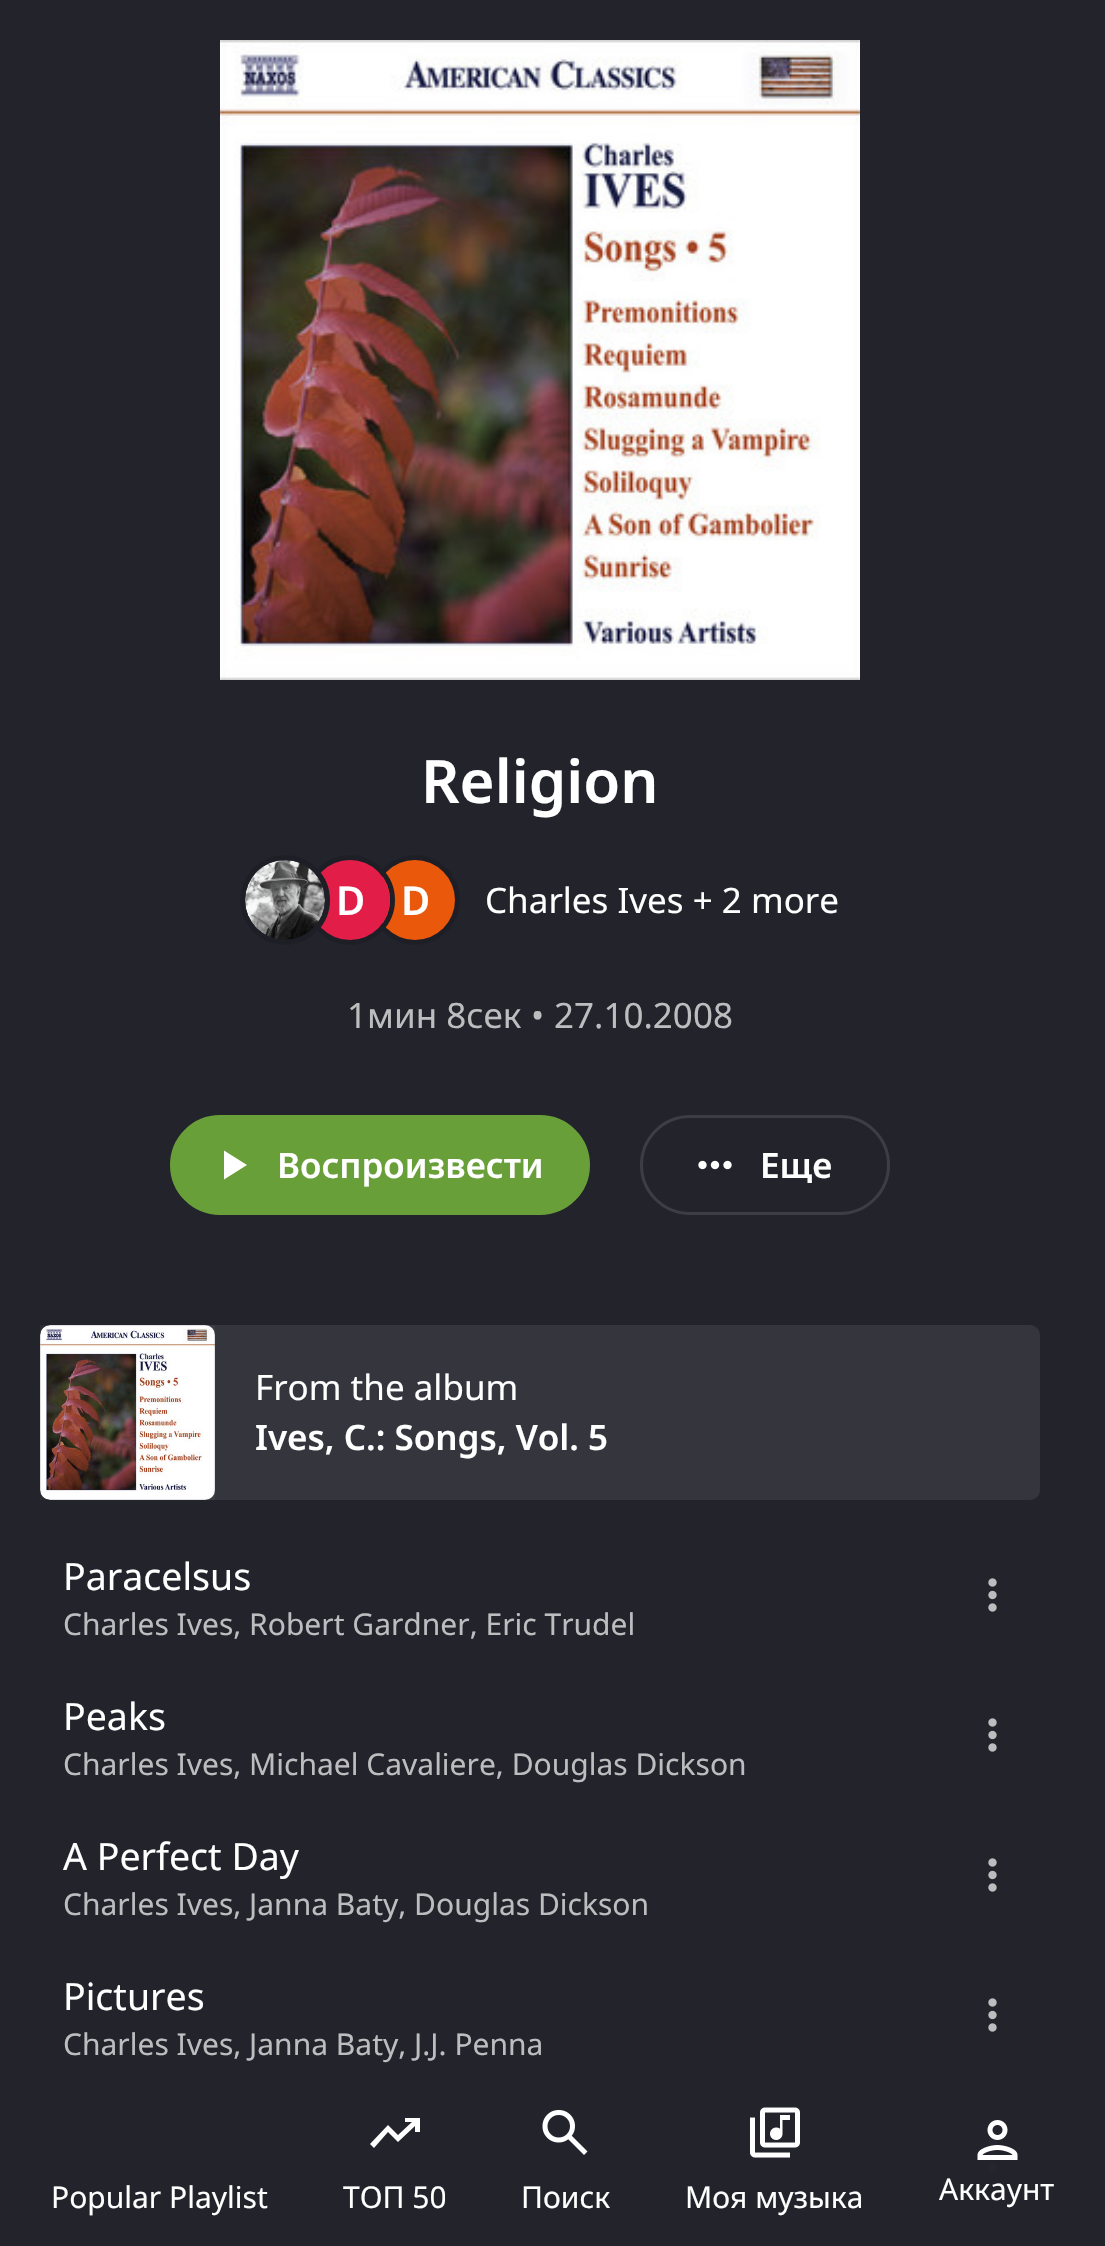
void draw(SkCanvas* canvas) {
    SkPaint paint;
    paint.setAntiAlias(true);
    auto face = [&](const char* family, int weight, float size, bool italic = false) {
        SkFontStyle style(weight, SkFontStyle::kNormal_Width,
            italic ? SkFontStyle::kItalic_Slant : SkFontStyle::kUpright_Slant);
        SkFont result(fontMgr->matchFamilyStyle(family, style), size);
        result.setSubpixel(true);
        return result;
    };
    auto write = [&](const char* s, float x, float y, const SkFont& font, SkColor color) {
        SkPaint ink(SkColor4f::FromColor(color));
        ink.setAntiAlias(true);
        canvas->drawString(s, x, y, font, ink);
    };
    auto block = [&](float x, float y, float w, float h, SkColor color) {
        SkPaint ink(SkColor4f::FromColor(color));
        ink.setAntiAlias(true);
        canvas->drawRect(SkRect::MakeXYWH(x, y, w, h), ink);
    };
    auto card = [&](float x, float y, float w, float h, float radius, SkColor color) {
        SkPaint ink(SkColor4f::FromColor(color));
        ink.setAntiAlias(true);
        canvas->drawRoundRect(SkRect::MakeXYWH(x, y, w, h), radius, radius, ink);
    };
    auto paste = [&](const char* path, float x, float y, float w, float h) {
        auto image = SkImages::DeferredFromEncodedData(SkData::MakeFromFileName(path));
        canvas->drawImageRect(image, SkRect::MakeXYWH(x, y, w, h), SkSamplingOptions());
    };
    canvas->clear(SkColorSetRGB(35, 35, 44));
    paste("pic1.png", 220, 40, 640, 640);
    auto kFont1 = face("Noto Sans", 600, 60);
    write("Religion", 421, 803, kFont1, SK_ColorWHITE);
    paint.setColor(SkColorSetRGB(30, 30, 38));
    canvas->drawCircle(415, 900, 45, paint);
    paint.setColor(SkColorSetRGB(234, 88, 12));
    canvas->drawCircle(415, 900, 40, paint);
    paint.setStyle(SkPaint::kStroke_Style);
    paint.setStrokeWidth(5);
    paint.setColor(SkColorSetRGB(30, 30, 38));
    canvas->drawCircle(350, 900, 42.5f, paint);
    paint.setStyle(SkPaint::kFill_Style);
    paint.setColor(SkColorSetRGB(225, 29, 72));
    canvas->drawCircle(350, 900, 40, paint);
    paint.setColor(SkColorSetRGB(30, 30, 38));
    canvas->drawCircle(285, 900, 42.5f, paint);
    paint.setStyle(SkPaint::kStroke_Style);
    canvas->drawCircle(285, 900, 42.5f, paint);
    paste("pic2.png", 245, 860, 80, 80);
    auto kFont2 = face("Noto Sans", 600, 40);
    write("D", 336, 915, kFont2, SK_ColorWHITE);
    write("D", 401, 915, kFont2, SK_ColorWHITE);
    auto kFont3 = face("Noto Sans", 400, 35);
    write("Charles Ives + 2 more", 485, 913, kFont3, SK_ColorWHITE);
    write("1мин 8сек", 347, 1028, kFont3, SkColorSetRGB(189, 189, 192));
    write("•", 531, 1028, kFont3, SkColorSetRGB(189, 189, 192));
    write("27.10.2008", 554, 1028, kFont3, SkColorSetRGB(189, 189, 192));
    paint.setStyle(SkPaint::kFill_Style);
    paint.setColor(SkColorSetRGB(104, 159, 56));
    canvas->drawRoundRect(SkRect::MakeXYWH(171.5f, 1116.5f, 417, 97), 48.5f, 48.5f, paint);
    paint.setStyle(SkPaint::kStroke_Style);
    paint.setStrokeWidth(3);
    canvas->drawRoundRect(SkRect::MakeXYWH(171.5f, 1116.5f, 417, 97), 48.5f, 48.5f, paint);
    paint.setStyle(SkPaint::kFill_Style);
    paint.setColor(SK_ColorWHITE);
    canvas->drawPath(SkPathBuilder().moveTo(224, 1179.5f).lineTo(224, 1150.5f).lineTo(247, 1165).close().detach(), paint);
    auto kFont4 = face("Noto Sans", 600, 35);
    write("Воспроизвести", 277, 1178, kFont4, SK_ColorWHITE);
    paint.setStyle(SkPaint::kStroke_Style);
    paint.setColor(SkColorSetRGB(61, 61, 69));
    canvas->drawRoundRect(SkRect::MakeXYWH(641.5f, 1116.5f, 247, 97), 48.5f, 48.5f, paint);
    paste("pic3.png", 698, 1160, 34, 10);
    write("Еще", 760, 1178, kFont4, SK_ColorWHITE);
    card(40, 1325, 1000, 175, 10, SkColorSetRGB(53, 53, 61));
    block(40, 1325, 175, 175, SkColorSetARGB(10, 255, 255, 255));
    paste("pic4.png", 40, 1325, 175, 175);
    write("From the album", 255, 1400, kFont3, SK_ColorWHITE);
    write("Ives, C.: Songs, Vol. 5", 255, 1450, kFont4, SK_ColorWHITE);
    auto kFont5 = face("Noto Sans", 400, 37.5f);
    write("Paracelsus", 63, 1590, kFont5, SK_ColorWHITE);
    auto kFont6 = face("Noto Sans", 400, 30);
    write("Charles Ives, Robert Gardner, Eric Trudel", 63, 1635, kFont6, SkColorSetRGB(189, 189, 192));
    paste("pic5.png", 988, 1578, 9, 34);
    write("Peaks", 63, 1730, kFont5, SK_ColorWHITE);
    write("Charles Ives, Michael Cavaliere, Douglas Dickson", 63, 1775, kFont6, SkColorSetRGB(189, 189, 192));
    paste("pic5.png", 988, 1718, 9, 34);
    write("A Perfect Day", 63, 1870, kFont5, SK_ColorWHITE);
    write("Charles Ives, Janna Baty, Douglas Dickson", 63, 1915, kFont6, SkColorSetRGB(189, 189, 192));
    paste("pic5.png", 988, 1858, 9, 34);
    write("Pictures", 63, 2010, kFont5, SK_ColorWHITE);
    write("Charles Ives, Janna Baty, J.J. Penna", 63, 2055, kFont6, SkColorSetRGB(189, 189, 192));
    paste("pic5.png", 988, 1998, 9, 34);
    paste("pic6.png", 988, 2138, 9, 34);
    write("Popular Playlist", 51, 2208, kFont6, SK_ColorWHITE);
    paint.setStyle(SkPaint::kFill_Style);
    paint.setColor(SK_ColorWHITE);
    canvas->drawPath(SkPathBuilder().moveTo(374, 2148).lineTo(370, 2144).lineTo(388, 2125).lineTo(398, 2135).lineTo(412, 2122).lineTo(405, 2122).lineTo(405, 2118).lineTo(420, 2118).lineTo(420, 2132).lineTo(415, 2132).lineTo(415, 2126).lineTo(398, 2142).lineTo(388, 2132).close().detach(), paint);
    canvas->save();
    canvas->clipRect(SkRect::MakeXYWH(343, 2103, 102, 115));
    write("ТОП 50", 343, 2208, kFont6, SK_ColorWHITE);
    canvas->restore();
    paste("pic7.png", 542, 2110, 46, 45);
    write("Поиск", 521, 2208, kFont6, SK_ColorWHITE);
    paste("pic8.png", 750, 2107, 50, 51);
    write("Моя музыка", 685, 2208, kFont6, SK_ColorWHITE);
    paste("pic9.png", 977, 2120, 41, 40);
    write("Аккаунт", 939, 2200, kFont6, SK_ColorWHITE);
}
